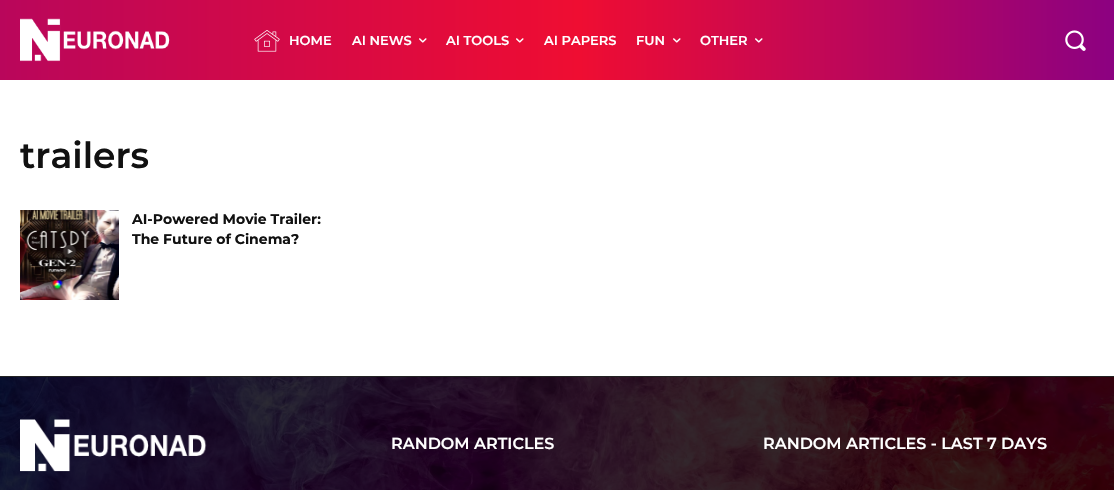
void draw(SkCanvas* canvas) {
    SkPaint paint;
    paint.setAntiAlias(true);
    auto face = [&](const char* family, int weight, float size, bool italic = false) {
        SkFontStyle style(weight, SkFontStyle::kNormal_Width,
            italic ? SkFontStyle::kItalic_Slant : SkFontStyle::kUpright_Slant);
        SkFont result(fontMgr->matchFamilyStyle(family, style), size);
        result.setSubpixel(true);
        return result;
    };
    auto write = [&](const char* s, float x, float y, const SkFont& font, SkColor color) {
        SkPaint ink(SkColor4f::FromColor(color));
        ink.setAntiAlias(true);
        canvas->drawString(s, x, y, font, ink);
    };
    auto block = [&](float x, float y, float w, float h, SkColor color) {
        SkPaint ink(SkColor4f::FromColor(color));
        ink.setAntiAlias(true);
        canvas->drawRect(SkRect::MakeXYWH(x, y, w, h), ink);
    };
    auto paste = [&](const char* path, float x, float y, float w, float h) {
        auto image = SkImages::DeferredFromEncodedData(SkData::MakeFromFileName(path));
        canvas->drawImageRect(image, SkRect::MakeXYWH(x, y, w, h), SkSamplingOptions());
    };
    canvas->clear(SK_ColorWHITE);
    {
        const SkColor colors[] = {SkColorSetRGB(140, 1, 129), SkColorSetRGB(239, 13, 50), SkColorSetRGB(185, 6, 91)};
        const float stops[] = {0, 0.48f, 1};
        const SkPoint ends[] = {{1114, 40}, {0, 40}};
        paint.setShader(SkGradientShader::MakeLinear(ends, colors, stops, 3, SkTileMode::kClamp));
        paint.setAlpha(255);
    }
    canvas->drawRect(SkRect::MakeXYWH(0, 0, 1114, 80), paint);
    paste("pic1.png", 20, 18, 150, 44);
    paste("pic2.png", 254, 30, 26, 22);
    auto kFont1 = face("Montserrat", 600, 13);
    write("HOME", 289, 45, kFont1, SK_ColorWHITE);
    write("AI NEWS", 352, 45, kFont1, SK_ColorWHITE);
    paste("pic3.png", 419, 38, 8, 5);
    write("AI TOOLS", 446, 45, kFont1, SK_ColorWHITE);
    paste("pic4.png", 516, 38, 8, 5);
    write("AI PAPERS", 544, 45, kFont1, SK_ColorWHITE);
    write("FUN", 636, 45, kFont1, SK_ColorWHITE);
    paste("pic5.png", 673, 38, 8, 5);
    write("OTHER", 700, 45, kFont1, SK_ColorWHITE);
    paste("pic6.png", 755, 38, 8, 5);
    paste("pic7.png", 1065, 30, 21, 21);
    auto kFont2 = face("Montserrat", 600, 36);
    write("trailers", 20, 168, kFont2, SkColorSetRGB(17, 17, 17));
    paste("pic8.png", 20, 210, 99, 90);
    auto kFont3 = face("Montserrat", 700, 14);
    write("AI-Powered Movie Trailer:", 132, 224, kFont3, SkColorSetRGB(17, 17, 17));
    write("The Future of Cinema?", 132, 244, kFont3, SkColorSetRGB(17, 17, 17));
    paste("pic9.png", 0, 377, 1114, 113);
    block(0, 376, 1114, 1, SkColorSetRGB(34, 34, 34));
    paste("pic10.png", 20, 419, 187, 53);
    auto kFont4 = face("Montserrat", 600, 16);
    write("RANDOM ARTICLES", 391, 449, kFont4, SK_ColorWHITE);
    write("RANDOM ARTICLES - LAST 7 DAYS", 763, 449, kFont4, SK_ColorWHITE);
}
